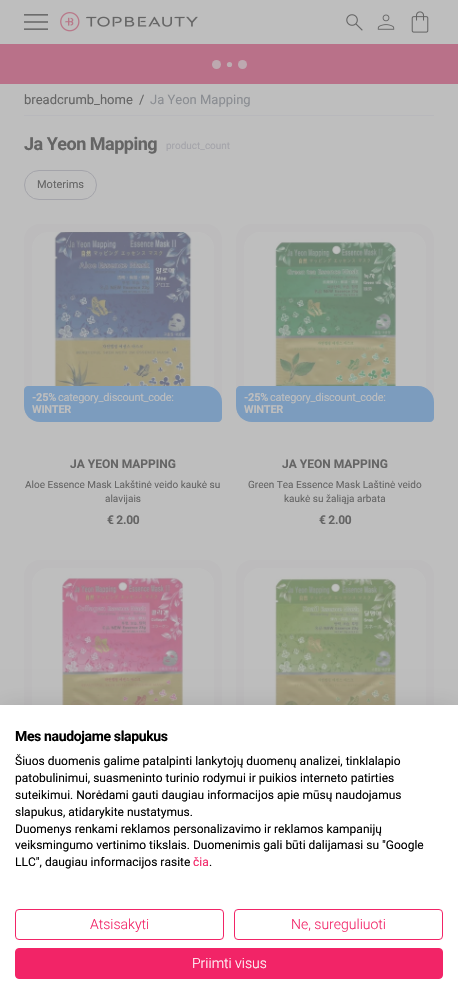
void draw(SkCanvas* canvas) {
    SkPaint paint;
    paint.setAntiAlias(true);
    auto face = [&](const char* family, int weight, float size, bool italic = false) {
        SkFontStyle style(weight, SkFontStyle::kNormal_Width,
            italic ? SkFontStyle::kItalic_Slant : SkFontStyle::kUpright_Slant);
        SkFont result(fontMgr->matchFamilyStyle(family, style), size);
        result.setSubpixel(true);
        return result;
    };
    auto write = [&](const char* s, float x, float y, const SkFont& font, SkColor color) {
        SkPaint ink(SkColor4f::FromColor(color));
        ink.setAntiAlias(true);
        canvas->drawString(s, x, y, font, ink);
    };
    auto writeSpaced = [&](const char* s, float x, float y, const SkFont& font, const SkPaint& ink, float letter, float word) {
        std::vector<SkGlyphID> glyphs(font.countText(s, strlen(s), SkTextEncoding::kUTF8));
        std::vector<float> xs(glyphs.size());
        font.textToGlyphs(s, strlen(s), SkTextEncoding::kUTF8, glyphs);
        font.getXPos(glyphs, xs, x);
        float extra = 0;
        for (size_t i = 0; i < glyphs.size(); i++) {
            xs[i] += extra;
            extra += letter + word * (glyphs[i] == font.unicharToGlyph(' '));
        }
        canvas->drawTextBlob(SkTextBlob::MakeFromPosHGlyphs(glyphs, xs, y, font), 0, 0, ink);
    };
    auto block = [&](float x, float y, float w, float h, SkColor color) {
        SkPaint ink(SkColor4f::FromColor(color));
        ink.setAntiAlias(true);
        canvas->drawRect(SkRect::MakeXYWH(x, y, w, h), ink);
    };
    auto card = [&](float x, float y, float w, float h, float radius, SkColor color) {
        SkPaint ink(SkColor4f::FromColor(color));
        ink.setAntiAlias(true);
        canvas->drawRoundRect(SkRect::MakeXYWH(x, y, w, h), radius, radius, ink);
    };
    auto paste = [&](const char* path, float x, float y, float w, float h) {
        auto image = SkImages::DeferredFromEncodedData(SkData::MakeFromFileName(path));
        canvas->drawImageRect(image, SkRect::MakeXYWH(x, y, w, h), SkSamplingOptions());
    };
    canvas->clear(SkColorSetRGB(190, 190, 190));
    paste("pic1.png", 24, 14, 24, 16);
    paste("pic2.png", 60, 12, 138, 20);
    paste("pic3.png", 346, 14, 17, 17);
    paste("pic4.png", 377, 14, 18, 16);
    paste("pic5.png", 411, 11, 18, 22);
    block(0, 44, 458, 40, SkColorSetRGB(185, 113, 137));
    paint.setColor(SkColorSetRGB(189, 169, 176));
    canvas->drawCircle(216.5f, 64.5f, 4.5f, paint);
    paint.setColor(SkColorSetRGB(189, 173, 178));
    canvas->drawCircle(229.5f, 64.5f, 2.6f, paint);
    paint.setColor(SkColorSetRGB(189, 169, 176));
    canvas->drawCircle(242.5f, 64.5f, 4.5f, paint);
    block(24, 115, 410, 1, SkColorSetRGB(184, 184, 188));
    auto kFont1 = face("Roboto", 400, 13);
    write("breadcrumb_home", 24, 104, kFont1, SkColorSetRGB(101, 101, 101));
    write("/", 139, 104, kFont1, SkColorSetRGB(101, 101, 101));
    write("Ja Yeon Mapping", 150, 104, kFont1, SkColorSetRGB(138, 141, 146));
    auto kFont2 = face("Roboto", 700, 18);
    paint.setColor(SkColorSetRGB(101, 101, 101));
    writeSpaced("Ja Yeon Mapping", 24, 150, kFont2, paint, -0.5f, 0);
    auto kFont3 = face("Roboto", 400, 10);
    write("product_count", 166, 149, kFont3, SkColorSetRGB(164, 164, 170));
    paint.setStyle(SkPaint::kStroke_Style);
    paint.setStrokeWidth(1);
    paint.setColor(SkColorSetRGB(164, 164, 170));
    canvas->drawRoundRect(SkRect::MakeXYWH(24.5f, 170.5f, 72, 29), 14.5f, 14.5f, paint);
    auto kFont4 = face("Roboto", 400, 11);
    write("Moterims", 37, 188, kFont4, SkColorSetRGB(101, 101, 101));
    card(24, 224, 198, 198, 16, SkColorSetRGB(188, 187, 188));
    paste("pic6.png", 32, 232, 182, 157);
    paint.setStyle(SkPaint::kFill_Style);
    paint.setColor(SkColorSetRGB(124, 156, 190));
    canvas->drawPath(SkPathBuilder().moveTo(28, 386).lineTo(206, 386).cubicTo(215, 386, 222, 393, 222, 402).lineTo(222, 418).cubicTo(222, 420, 220, 422, 218, 422).lineTo(40, 422).cubicTo(31, 422, 24, 415, 24, 406).lineTo(24, 390).cubicTo(24, 388, 26, 386, 28, 386).close().detach(), paint);
    auto kFont5 = face("Roboto", 700, 11);
    paint.setColor(SkColorSetRGB(190, 190, 190));
    writeSpaced("-25%", 32, 401, kFont5, paint, -0.25f, 0);
    writeSpaced("category_discount_code:", 58, 401, kFont4, paint, -0.25f, 0);
    writeSpaced("WINTER", 32, 413, kFont5, paint, -0.25f, 0);
    auto kFont6 = face("Roboto", 700, 12);
    write("JA YEON MAPPING", 70, 468, kFont6, SkColorSetRGB(101, 101, 101));
    write("Aloe Essence Mask Lakštinė veido kaukė su", 25, 488, kFont3, SkColorSetRGB(101, 101, 101));
    write("alavijais", 105, 502, kFont3, SkColorSetRGB(101, 101, 101));
    paint.setColor(SkColorSetRGB(101, 101, 101));
    writeSpaced("€ 2.00", 107, 524, kFont6, paint, -0.25f, 0);
    card(236, 224, 198, 198, 16, SkColorSetRGB(188, 187, 188));
    paste("pic7.png", 244, 232, 182, 157);
    paint.setColor(SkColorSetRGB(124, 156, 190));
    canvas->drawPath(SkPathBuilder().moveTo(240, 386).lineTo(418, 386).cubicTo(427, 386, 434, 393, 434, 402).lineTo(434, 418).cubicTo(434, 420, 432, 422, 430, 422).lineTo(252, 422).cubicTo(243, 422, 236, 415, 236, 406).lineTo(236, 390).cubicTo(236, 388, 238, 386, 240, 386).close().detach(), paint);
    paint.setColor(SkColorSetRGB(190, 190, 190));
    writeSpaced("-25%", 244, 401, kFont5, paint, -0.25f, 0);
    writeSpaced("category_discount_code:", 270, 401, kFont4, paint, -0.25f, 0);
    writeSpaced("WINTER", 244, 413, kFont5, paint, -0.25f, 0);
    write("JA YEON MAPPING", 282, 468, kFont6, SkColorSetRGB(101, 101, 101));
    write("Green Tea Essence Mask Laštinė veido", 248, 488, kFont3, SkColorSetRGB(101, 101, 101));
    write("kaukė su žaliąja arbata", 284, 502, kFont3, SkColorSetRGB(101, 101, 101));
    paint.setColor(SkColorSetRGB(101, 101, 101));
    writeSpaced("€ 2.00", 319, 524, kFont6, paint, -0.25f, 0);
    card(24, 560, 198, 198, 16, SkColorSetRGB(188, 187, 188));
    paste("pic8.png", 32, 568, 182, 137);
    card(236, 560, 198, 198, 16, SkColorSetRGB(188, 187, 188));
    paste("pic9.png", 244, 568, 182, 137);
    paint.setColor(SkColorSetARGB(26, 0, 0, 0));
    paint.setMaskFilter(SkMaskFilter::MakeBlur(kNormal_SkBlurStyle, 12));
    canvas->drawRect(SkRect::MakeXYWH(0, 705, 458, 301), paint);
    paint.setMaskFilter(nullptr);
    block(0, 705, 458, 301, SK_ColorWHITE);
    auto kFont7 = face("Roboto", 700, 14);
    paint.setColor(SK_ColorBLACK);
    writeSpaced("Mes naudojame slapukus", 15, 741, kFont7, paint, -0.35f, 0);
    auto kFont8 = face("Roboto", 400, 12);
    write("Šiuos duomenis galime patalpinti lankytojų duomenų analizei, tinklalapio", 15, 765, kFont8, SK_ColorBLACK);
    write("patobulinimui, suasmeninto turinio rodymui ir puikios interneto patirties", 15, 782, kFont8, SK_ColorBLACK);
    write("suteikimui. Norėdami gauti daugiau informacijos apie mūsų naudojamus", 15, 799, kFont8, SK_ColorBLACK);
    write("slapukus, atidarykite nustatymus.", 15, 816, kFont8, SK_ColorBLACK);
    write("Duomenys renkami reklamos personalizavimo ir reklamos kampanijų", 15, 833, kFont8, SK_ColorBLACK);
    write("veiksmingumo vertinimo tikslais. Duomenimis gali būti dalijamasi su \"Google", 15, 849, kFont8, SK_ColorBLACK);
    write("LLC\", daugiau informacijos rasite", 15, 866, kFont8, SK_ColorBLACK);
    write("čia", 193, 866, kFont8, SkColorSetRGB(242, 36, 103));
    write(".", 209, 866, kFont8, SK_ColorBLACK);
    paint.setStyle(SkPaint::kStroke_Style);
    paint.setColor(SkColorSetRGB(242, 36, 103));
    canvas->drawRoundRect(SkRect::MakeXYWH(15.5f, 909.5f, 208, 30), 3.5f, 3.5f, paint);
    auto kFont9 = face("Roboto", 300, 14);
    write("Atsisakyti", 90, 929, kFont9, SkColorSetRGB(242, 36, 103));
    canvas->drawRoundRect(SkRect::MakeXYWH(234.5f, 909.5f, 208, 30), 3.5f, 3.5f, paint);
    write("Ne, sureguliuoti", 291, 929, kFont9, SkColorSetRGB(242, 36, 103));
    paint.setStyle(SkPaint::kFill_Style);
    canvas->drawRoundRect(SkRect::MakeXYWH(15.5f, 948.5f, 427, 30), 3.5f, 3.5f, paint);
    paint.setStyle(SkPaint::kStroke_Style);
    canvas->drawRoundRect(SkRect::MakeXYWH(15.5f, 948.5f, 427, 30), 3.5f, 3.5f, paint);
    write("Priimti visus", 192, 968, kFont9, SK_ColorWHITE);
}
